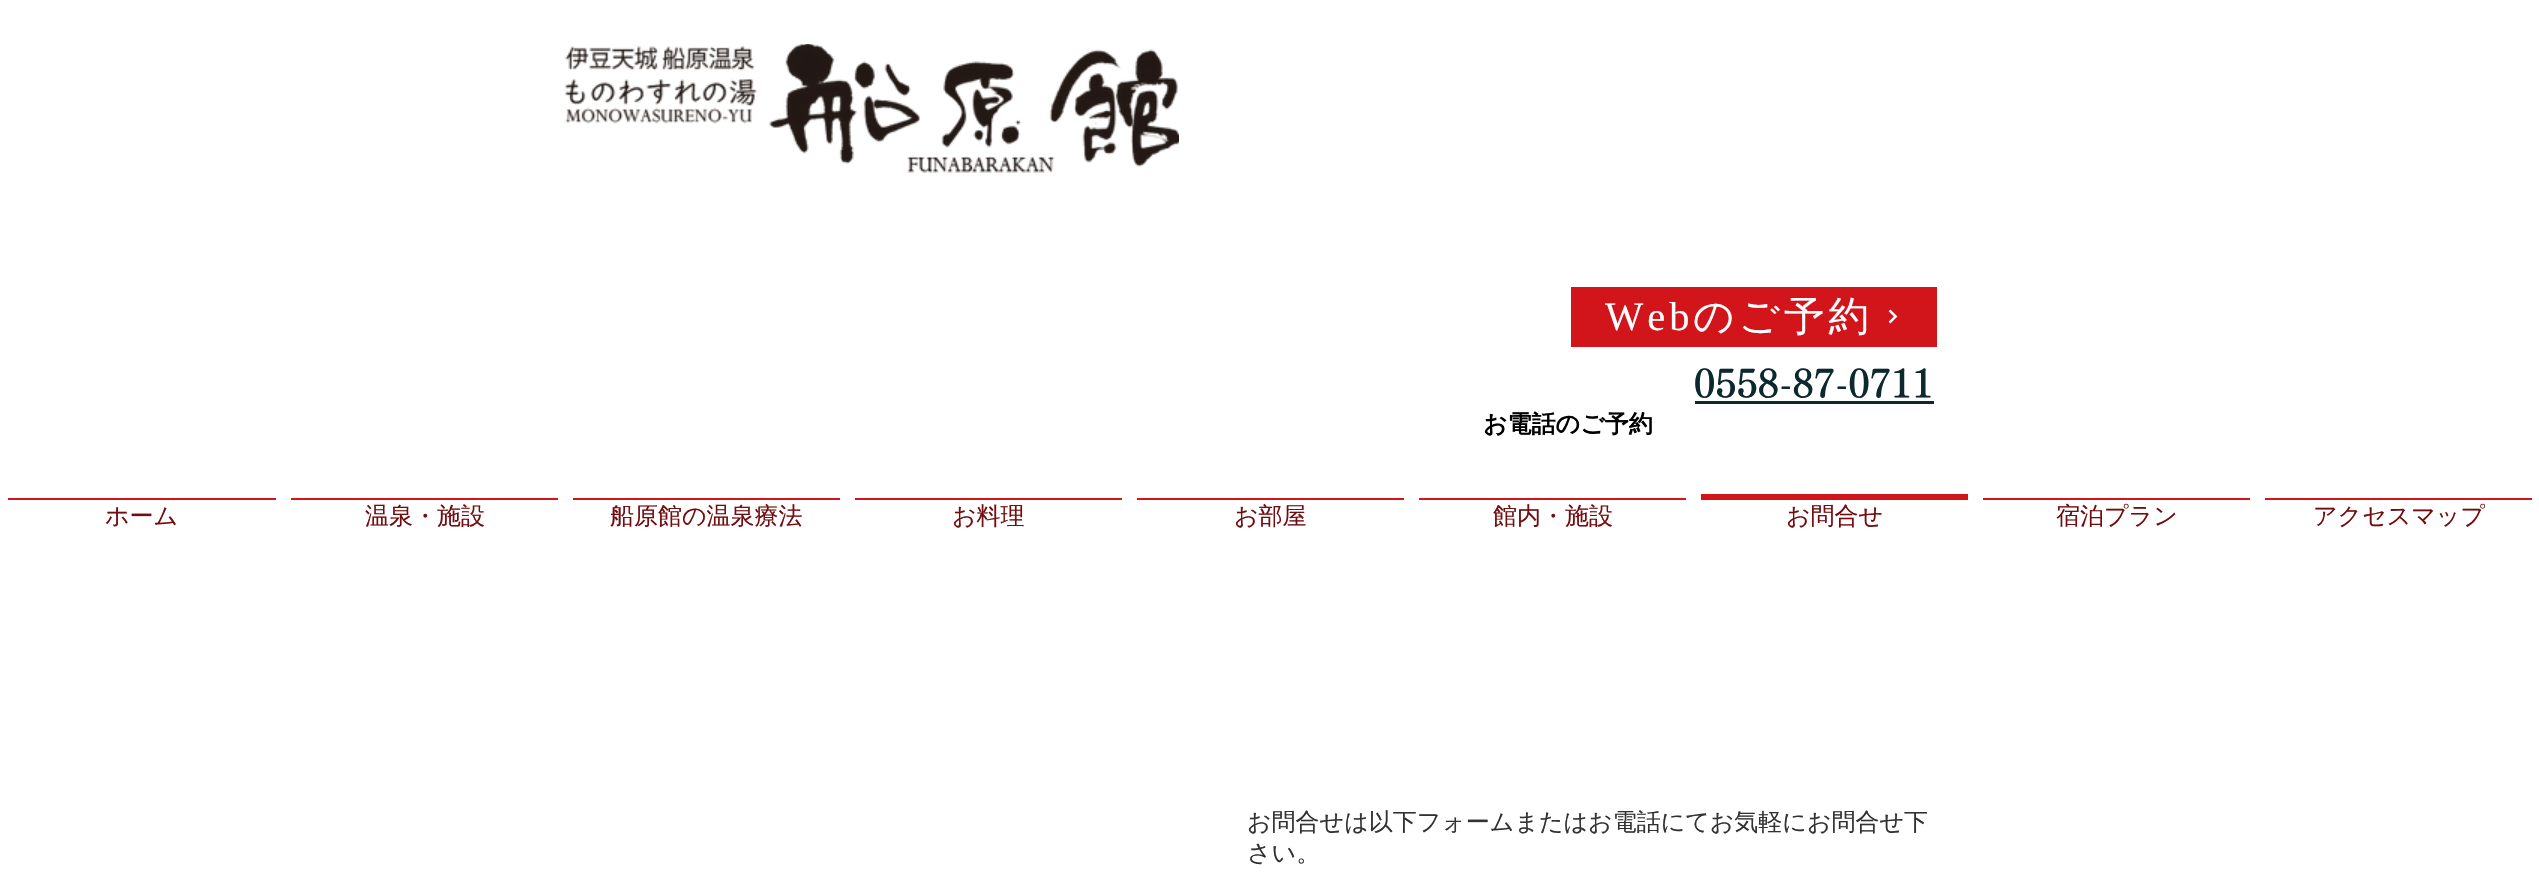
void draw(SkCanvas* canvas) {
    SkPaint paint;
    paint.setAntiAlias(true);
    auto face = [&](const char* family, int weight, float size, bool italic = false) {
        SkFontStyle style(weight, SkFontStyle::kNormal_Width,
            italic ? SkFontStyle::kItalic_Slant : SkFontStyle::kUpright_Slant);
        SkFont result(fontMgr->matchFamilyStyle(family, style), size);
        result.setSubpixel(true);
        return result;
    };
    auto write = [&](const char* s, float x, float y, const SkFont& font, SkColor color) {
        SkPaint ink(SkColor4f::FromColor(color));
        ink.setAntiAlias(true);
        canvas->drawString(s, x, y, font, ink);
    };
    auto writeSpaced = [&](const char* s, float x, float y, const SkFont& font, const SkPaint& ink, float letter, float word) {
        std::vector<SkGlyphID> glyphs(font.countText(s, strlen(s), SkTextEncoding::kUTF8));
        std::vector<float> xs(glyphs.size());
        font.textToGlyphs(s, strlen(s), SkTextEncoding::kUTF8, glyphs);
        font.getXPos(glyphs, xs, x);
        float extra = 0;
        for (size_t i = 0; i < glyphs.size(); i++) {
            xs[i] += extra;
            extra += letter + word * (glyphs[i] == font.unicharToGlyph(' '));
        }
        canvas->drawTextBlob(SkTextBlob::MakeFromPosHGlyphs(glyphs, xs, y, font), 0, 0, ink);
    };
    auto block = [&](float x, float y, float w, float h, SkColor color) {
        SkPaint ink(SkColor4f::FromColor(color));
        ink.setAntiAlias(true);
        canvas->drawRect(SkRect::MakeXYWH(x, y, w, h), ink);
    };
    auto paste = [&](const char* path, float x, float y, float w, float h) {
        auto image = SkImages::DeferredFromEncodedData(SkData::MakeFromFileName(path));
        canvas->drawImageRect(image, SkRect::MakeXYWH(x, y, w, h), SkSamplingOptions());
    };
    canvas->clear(SK_ColorWHITE);
    paste("pic1.png", 565, 44, 614, 129);
    block(1571, 287, 366, 60, SkColorSetRGB(209, 21, 27));
    auto kFont1 = face("Liberation Serif", 400, 40.5f);
    paint.setColor(SK_ColorWHITE);
    writeSpaced("Web", 1605, 330, kFont1, paint, 4, 0);
    auto kFont2 = face("WenQuanYi Zen Hei", 500, 40.5f);
    writeSpaced("のご予約", 1693, 330, kFont2, paint, 4, 0);
    paste("pic2.png", 1888, 309, 10, 15);
    auto kFont3 = face("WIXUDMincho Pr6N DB", 600, 37.5f);
    write("0558-87-0711", 1694, 398, kFont3, SkColorSetRGB(13, 41, 48));
    block(1695, 401, 239, 3, SkColorSetRGB(13, 41, 48));
    auto kFont4 = face("WenQuanYi Zen Hei", 700, 24);
    write("お電話のご予約", 1483, 432, kFont4, SK_ColorBLACK);
    block(8, 498, 268, 2, SkColorSetRGB(209, 21, 27));
    auto kFont5 = face("WenQuanYi Zen Hei", 500, 24);
    write("ホーム", 105, 524, kFont5, SkColorSetRGB(114, 13, 17));
    block(291, 498, 267, 2, SkColorSetRGB(209, 21, 27));
    write("温泉・施設", 365, 524, kFont5, SkColorSetRGB(114, 13, 17));
    block(573, 498, 267, 2, SkColorSetRGB(209, 21, 27));
    write("船原館の温泉療法", 610, 524, kFont5, SkColorSetRGB(114, 13, 17));
    block(855, 498, 267, 2, SkColorSetRGB(209, 21, 27));
    write("お料理", 952, 524, kFont5, SkColorSetRGB(114, 13, 17));
    block(1137, 498, 267, 2, SkColorSetRGB(209, 21, 27));
    write("お部屋", 1234, 524, kFont5, SkColorSetRGB(114, 13, 17));
    block(1419, 498, 267, 2, SkColorSetRGB(209, 21, 27));
    write("館内・施設", 1493, 524, kFont5, SkColorSetRGB(114, 13, 17));
    block(1701, 494, 267, 6, SkColorSetRGB(209, 21, 27));
    write("お問合せ", 1786, 524, kFont5, SkColorSetRGB(114, 13, 17));
    block(1983, 498, 267, 2, SkColorSetRGB(209, 21, 27));
    write("宿泊プラン", 2056, 524, kFont5, SkColorSetRGB(114, 13, 17));
    block(2265, 498, 267, 2, SkColorSetRGB(209, 21, 27));
    write("アクセスマップ", 2313, 524, kFont5, SkColorSetRGB(114, 13, 17));
    write("お問合せは以下フォームまたはお電話にてお気軽にお問合せ下", 1247, 830, kFont5, SkColorSetRGB(50, 50, 50));
    write("さい。", 1247, 861, kFont5, SkColorSetRGB(50, 50, 50));
}
